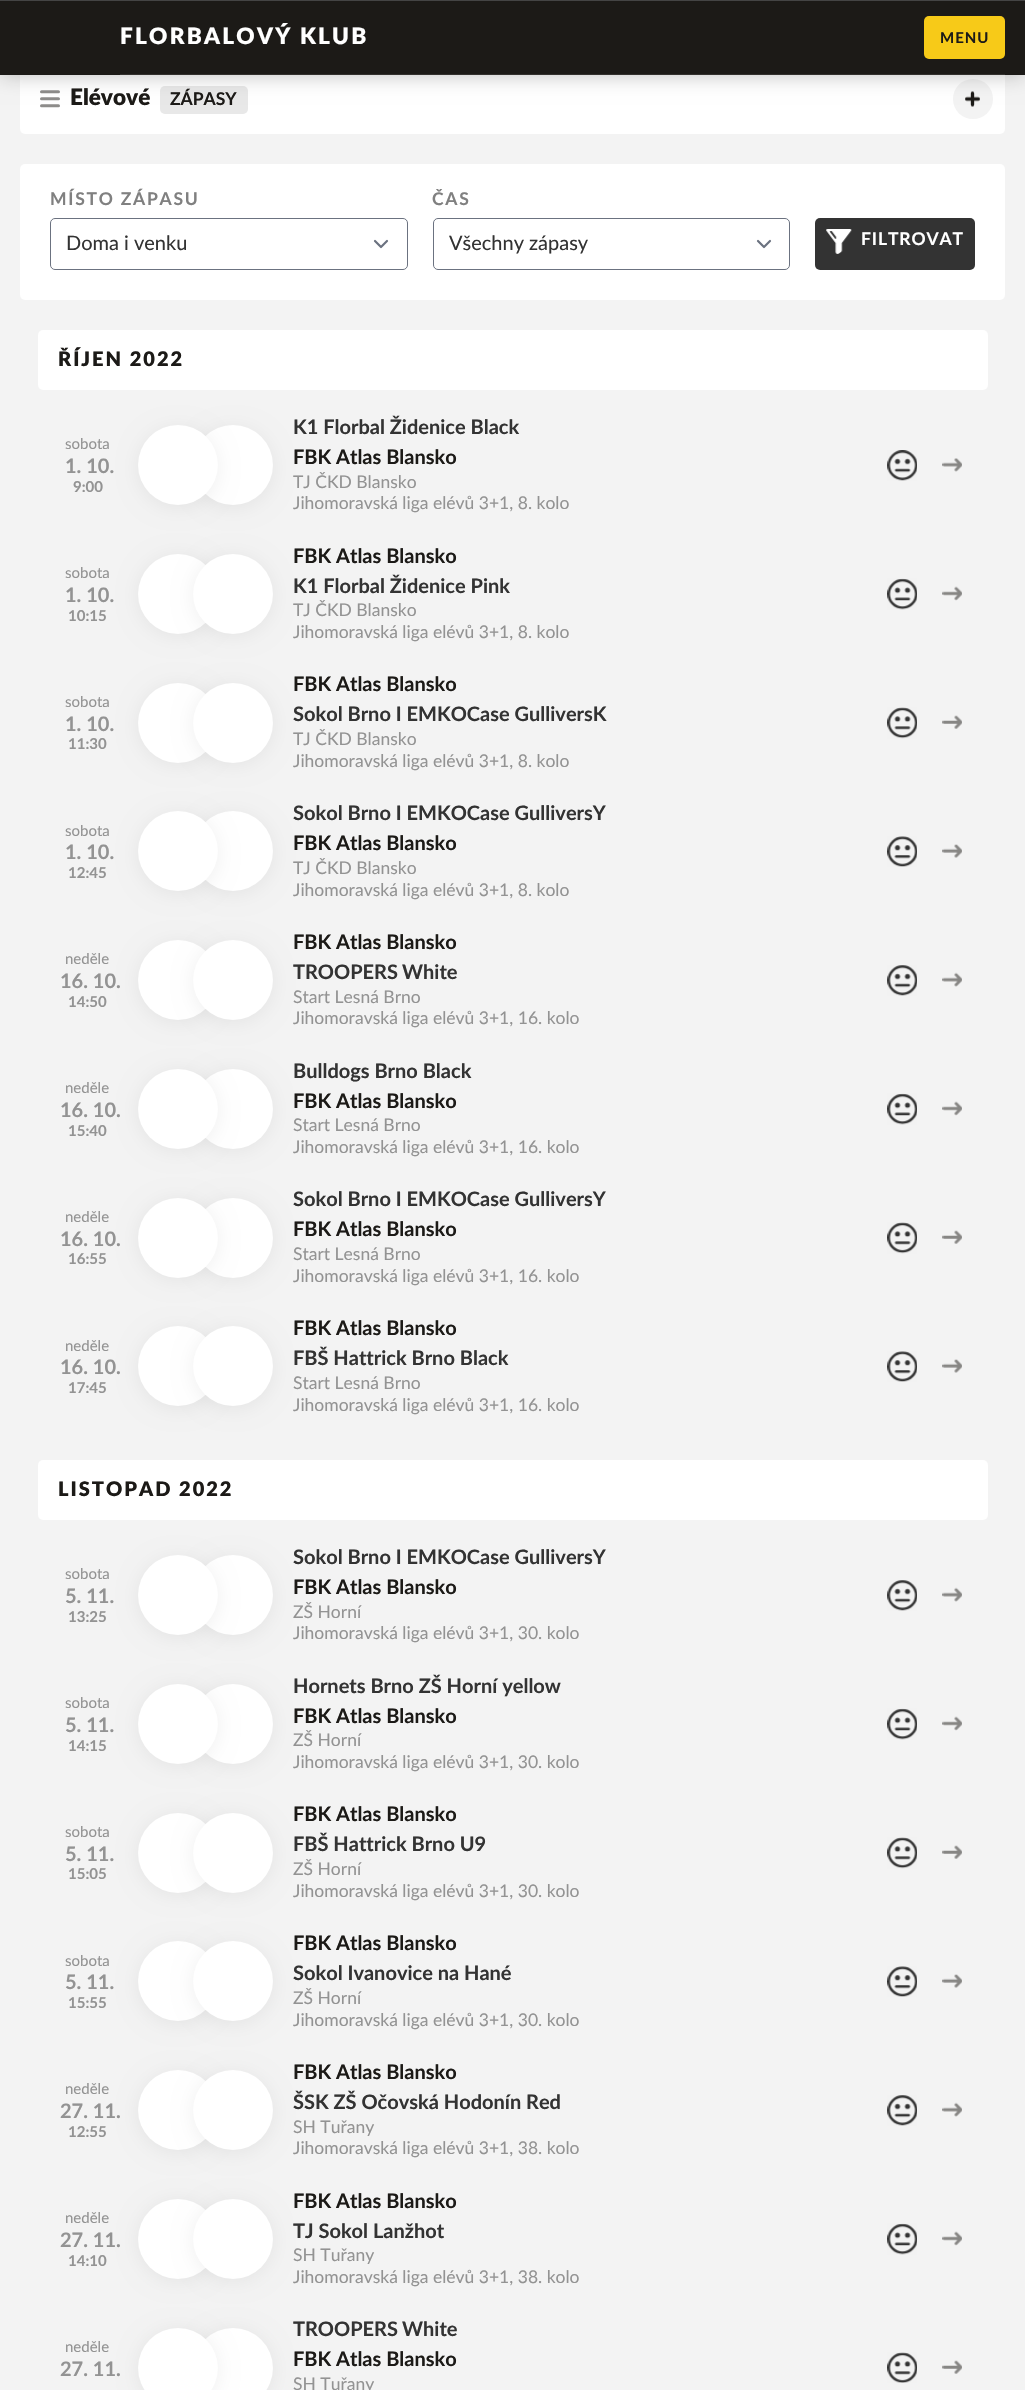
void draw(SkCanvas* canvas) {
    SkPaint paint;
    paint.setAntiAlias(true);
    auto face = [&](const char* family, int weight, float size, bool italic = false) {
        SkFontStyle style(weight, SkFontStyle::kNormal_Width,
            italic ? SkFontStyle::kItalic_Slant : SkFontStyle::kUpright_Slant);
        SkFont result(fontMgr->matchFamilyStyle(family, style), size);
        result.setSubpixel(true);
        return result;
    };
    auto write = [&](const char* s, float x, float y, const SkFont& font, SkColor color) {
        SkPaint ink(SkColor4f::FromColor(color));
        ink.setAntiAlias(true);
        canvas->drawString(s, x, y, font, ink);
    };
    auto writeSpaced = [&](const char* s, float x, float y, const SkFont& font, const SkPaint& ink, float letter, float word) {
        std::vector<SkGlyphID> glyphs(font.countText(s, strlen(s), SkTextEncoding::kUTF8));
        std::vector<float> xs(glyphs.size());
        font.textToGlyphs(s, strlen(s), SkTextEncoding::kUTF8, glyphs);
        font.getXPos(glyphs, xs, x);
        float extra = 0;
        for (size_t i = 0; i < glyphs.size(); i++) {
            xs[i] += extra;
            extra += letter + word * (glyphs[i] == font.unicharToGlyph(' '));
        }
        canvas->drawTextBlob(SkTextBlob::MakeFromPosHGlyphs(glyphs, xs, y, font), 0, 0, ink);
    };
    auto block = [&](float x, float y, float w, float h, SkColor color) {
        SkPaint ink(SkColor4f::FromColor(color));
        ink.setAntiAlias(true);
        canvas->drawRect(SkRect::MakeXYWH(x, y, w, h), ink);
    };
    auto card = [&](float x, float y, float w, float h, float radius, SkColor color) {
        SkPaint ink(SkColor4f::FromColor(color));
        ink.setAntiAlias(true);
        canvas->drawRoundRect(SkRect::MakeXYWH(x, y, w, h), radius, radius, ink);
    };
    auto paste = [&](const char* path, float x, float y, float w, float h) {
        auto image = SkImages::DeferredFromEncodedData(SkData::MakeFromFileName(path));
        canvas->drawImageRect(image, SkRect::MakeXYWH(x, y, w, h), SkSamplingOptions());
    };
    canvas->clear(SkColorSetRGB(243, 243, 243));
    card(20, 64, 985, 70, 5, SK_ColorWHITE);
    paste("pic1.png", 40, 90, 20, 18);
    card(160, 86, 88, 28, 5, SkColorSetRGB(232, 232, 232));
    paint.setColor(SkColorSetRGB(243, 243, 243));
    canvas->drawCircle(973, 99, 20, paint);
    paste("pic2.png", 965, 91, 15, 16);
    paint.setColor(SkColorSetARGB(64, 0, 0, 0));
    paint.setMaskFilter(SkMaskFilter::MakeBlur(kNormal_SkBlurStyle, 10));
    canvas->drawRect(SkRect::MakeXYWH(0, 0, 1025, 75), paint);
    paint.setMaskFilter(nullptr);
    block(0, 1, 1025, 74, SkColorSetRGB(28, 26, 23));
    block(0, 0, 1025, 1, SkColorSetRGB(68, 68, 68));
    block(120, 74, 885, 1, SkColorSetRGB(51, 49, 46));
    auto kFont1 = face("Lato", 900, 22.5f);
    paint.setColor(SK_ColorWHITE);
    writeSpaced("FLORBALOVÝ KLUB", 120, 44, kFont1, paint, 2.25f, 0);
    card(924, 16, 81, 43, 5, SkColorSetRGB(247, 202, 24));
    auto kFont2 = face("Lato", 700, 15);
    paint.setColor(SkColorSetRGB(28, 26, 23));
    writeSpaced("MENU", 940, 43, kFont2, paint, 1, 0);
    write("Elévové", 70, 105, kFont1, SkColorSetRGB(28, 26, 23));
    auto kFont3 = face("Lato", 700, 17.5f);
    write("ZÁPASY", 170, 105, kFont3, SkColorSetRGB(28, 26, 23));
    card(20, 164, 985, 136, 5, SK_ColorWHITE);
    paint.setColor(SkColorSetRGB(128, 128, 128));
    writeSpaced("MÍSTO ZÁPASU", 50, 205, kFont3, paint, 1.75f, 0);
    paint.setStyle(SkPaint::kStroke_Style);
    paint.setStrokeWidth(2.2f);
    paint.setStrokeCap(SkPaint::kRound_Cap);
    paint.setStrokeJoin(SkPaint::kRound_Join);
    paint.setColor(SkColorSetRGB(107, 114, 128));
    canvas->drawPath(SkPathBuilder().moveTo(375, 241).lineTo(381, 247).lineTo(387, 241).detach(), paint);
    paint.setStrokeWidth(1);
    paint.setStrokeCap(SkPaint::kButt_Cap);
    paint.setStrokeJoin(SkPaint::kMiter_Join);
    canvas->drawRoundRect(SkRect::MakeXYWH(50.5f, 218.5f, 357, 51), 4.5f, 4.5f, paint);
    auto kFont4 = face("Lato", 400, 20);
    write("Doma i venku", 66, 250, kFont4, SkColorSetRGB(51, 51, 51));
    paint.setStyle(SkPaint::kFill_Style);
    paint.setColor(SkColorSetRGB(128, 128, 128));
    writeSpaced("ČAS", 432, 205, kFont3, paint, 1.75f, 0);
    paint.setStyle(SkPaint::kStroke_Style);
    paint.setStrokeWidth(2.2f);
    paint.setStrokeCap(SkPaint::kRound_Cap);
    paint.setStrokeJoin(SkPaint::kRound_Join);
    paint.setColor(SkColorSetRGB(107, 114, 128));
    canvas->drawPath(SkPathBuilder().moveTo(758, 241).lineTo(764, 247).lineTo(770, 241).detach(), paint);
    paint.setStrokeWidth(1);
    paint.setStrokeCap(SkPaint::kButt_Cap);
    paint.setStrokeJoin(SkPaint::kMiter_Join);
    canvas->drawRoundRect(SkRect::MakeXYWH(433.5f, 218.5f, 356, 51), 4.5f, 4.5f, paint);
    write("Všechny zápasy", 449, 250, kFont4, SkColorSetRGB(51, 51, 51));
    card(815, 218, 160, 52, 5, SkColorSetRGB(51, 51, 51));
    paste("pic3.png", 826, 229, 26, 25);
    paint.setStyle(SkPaint::kFill_Style);
    paint.setColor(SK_ColorWHITE);
    writeSpaced("FILTROVAT", 861, 245, kFont3, paint, 0.9f, 0);
    card(38, 330, 950, 60, 5, SK_ColorWHITE);
    auto kFont5 = face("Lato", 900, 20);
    paint.setColor(SkColorSetRGB(28, 26, 23));
    writeSpaced("ŘÍJEN 2022", 58, 366, kFont5, paint, 2, 0);
    auto kFont6 = face("Lato", 400, 15);
    write("sobota", 65, 449, kFont6, SkColorSetRGB(147, 147, 147));
    auto kFont7 = face("Lato", 700, 20);
    write("1. 10.", 65, 473, kFont7, SkColorSetRGB(147, 147, 147));
    write("9:00", 73, 492, kFont2, SkColorSetRGB(147, 147, 147));
    paint.setColor(SkColorSetARGB(15, 0, 0, 0));
    paint.setMaskFilter(SkMaskFilter::MakeBlur(kNormal_SkBlurStyle, 10));
    canvas->drawRoundRect(SkRect::MakeXYWH(193, 428, 80, 80), 40, 40, paint);
    paint.setMaskFilter(nullptr);
    paint.setColor(SK_ColorWHITE);
    canvas->drawCircle(233, 465, 40, paint);
    paint.setColor(SkColorSetARGB(15, 0, 0, 0));
    paint.setMaskFilter(SkMaskFilter::MakeBlur(kNormal_SkBlurStyle, 10));
    canvas->drawRoundRect(SkRect::MakeXYWH(138, 428, 80, 80), 40, 40, paint);
    paint.setMaskFilter(nullptr);
    paint.setColor(SK_ColorWHITE);
    canvas->drawCircle(178, 465, 40, paint);
    write("K1 Florbal Židenice Black", 293, 434, kFont7, SkColorSetRGB(51, 51, 51));
    write("FBK Atlas Blansko", 293, 464, kFont7, SkColorSetRGB(28, 26, 23));
    auto kFont8 = face("Lato", 400, 17.5f);
    write("TJ ČKD Blansko", 293, 488, kFont8, SkColorSetRGB(147, 147, 147));
    write("Jihomoravská liga elévů 3+1, 8. kolo", 293, 509, kFont8, SkColorSetRGB(147, 147, 147));
    paste("pic4.png", 887, 450, 30, 31);
    paste("pic5.png", 942, 458, 20, 14);
    write("sobota", 65, 578, kFont6, SkColorSetRGB(147, 147, 147));
    write("1. 10.", 65, 602, kFont7, SkColorSetRGB(147, 147, 147));
    write("10:15", 68, 621, kFont2, SkColorSetRGB(147, 147, 147));
    paint.setColor(SkColorSetARGB(15, 0, 0, 0));
    paint.setMaskFilter(SkMaskFilter::MakeBlur(kNormal_SkBlurStyle, 10));
    canvas->drawRoundRect(SkRect::MakeXYWH(138, 556, 80, 80), 40, 40, paint);
    paint.setMaskFilter(nullptr);
    paint.setColor(SK_ColorWHITE);
    canvas->drawCircle(178, 594, 40, paint);
    paint.setColor(SkColorSetARGB(15, 0, 0, 0));
    paint.setMaskFilter(SkMaskFilter::MakeBlur(kNormal_SkBlurStyle, 10));
    canvas->drawRoundRect(SkRect::MakeXYWH(193, 556, 80, 80), 40, 40, paint);
    paint.setMaskFilter(nullptr);
    paint.setColor(SK_ColorWHITE);
    canvas->drawCircle(233, 594, 40, paint);
    write("FBK Atlas Blansko", 293, 563, kFont7, SkColorSetRGB(28, 26, 23));
    write("K1 Florbal Židenice Pink", 293, 593, kFont7, SkColorSetRGB(51, 51, 51));
    write("TJ ČKD Blansko", 293, 616, kFont8, SkColorSetRGB(147, 147, 147));
    write("Jihomoravská liga elévů 3+1, 8. kolo", 293, 638, kFont8, SkColorSetRGB(147, 147, 147));
    paste("pic6.png", 887, 578, 30, 32);
    paste("pic7.png", 942, 586, 20, 15);
    write("sobota", 65, 707, kFont6, SkColorSetRGB(147, 147, 147));
    write("1. 10.", 65, 731, kFont7, SkColorSetRGB(147, 147, 147));
    write("11:30", 68, 749, kFont2, SkColorSetRGB(147, 147, 147));
    paint.setColor(SkColorSetARGB(15, 0, 0, 0));
    paint.setMaskFilter(SkMaskFilter::MakeBlur(kNormal_SkBlurStyle, 10));
    canvas->drawRoundRect(SkRect::MakeXYWH(138, 685, 80, 80), 40, 40, paint);
    paint.setMaskFilter(nullptr);
    paint.setColor(SK_ColorWHITE);
    canvas->drawCircle(178, 723, 40, paint);
    paint.setColor(SkColorSetARGB(15, 0, 0, 0));
    paint.setMaskFilter(SkMaskFilter::MakeBlur(kNormal_SkBlurStyle, 10));
    canvas->drawRoundRect(SkRect::MakeXYWH(193, 685, 80, 80), 40, 40, paint);
    paint.setMaskFilter(nullptr);
    paint.setColor(SK_ColorWHITE);
    canvas->drawCircle(233, 723, 40, paint);
    write("FBK Atlas Blansko", 293, 691, kFont7, SkColorSetRGB(28, 26, 23));
    write("Sokol Brno I EMKOCase GulliversK", 293, 721, kFont7, SkColorSetRGB(51, 51, 51));
    write("TJ ČKD Blansko", 293, 745, kFont8, SkColorSetRGB(147, 147, 147));
    write("Jihomoravská liga elévů 3+1, 8. kolo", 293, 767, kFont8, SkColorSetRGB(147, 147, 147));
    paste("pic8.png", 887, 707, 30, 32);
    paste("pic9.png", 942, 715, 20, 14);
    write("sobota", 65, 836, kFont6, SkColorSetRGB(147, 147, 147));
    write("1. 10.", 65, 859, kFont7, SkColorSetRGB(147, 147, 147));
    write("12:45", 68, 878, kFont2, SkColorSetRGB(147, 147, 147));
    paint.setColor(SkColorSetARGB(15, 0, 0, 0));
    paint.setMaskFilter(SkMaskFilter::MakeBlur(kNormal_SkBlurStyle, 10));
    canvas->drawRoundRect(SkRect::MakeXYWH(193, 814, 80, 80), 40, 40, paint);
    paint.setMaskFilter(nullptr);
    paint.setColor(SK_ColorWHITE);
    canvas->drawCircle(233, 851, 40, paint);
    paint.setColor(SkColorSetARGB(15, 0, 0, 0));
    paint.setMaskFilter(SkMaskFilter::MakeBlur(kNormal_SkBlurStyle, 10));
    canvas->drawRoundRect(SkRect::MakeXYWH(138, 814, 80, 80), 40, 40, paint);
    paint.setMaskFilter(nullptr);
    paint.setColor(SK_ColorWHITE);
    canvas->drawCircle(178, 851, 40, paint);
    write("Sokol Brno I EMKOCase GulliversY", 293, 820, kFont7, SkColorSetRGB(51, 51, 51));
    write("FBK Atlas Blansko", 293, 850, kFont7, SkColorSetRGB(28, 26, 23));
    write("TJ ČKD Blansko", 293, 874, kFont8, SkColorSetRGB(147, 147, 147));
    write("Jihomoravská liga elévů 3+1, 8. kolo", 293, 896, kFont8, SkColorSetRGB(147, 147, 147));
    paste("pic10.png", 887, 836, 30, 31);
    paste("pic11.png", 942, 844, 20, 14);
    write("neděle", 65, 964, kFont6, SkColorSetRGB(147, 147, 147));
    write("16. 10.", 60, 988, kFont7, SkColorSetRGB(147, 147, 147));
    write("14:50", 68, 1007, kFont2, SkColorSetRGB(147, 147, 147));
    paint.setColor(SkColorSetARGB(15, 0, 0, 0));
    paint.setMaskFilter(SkMaskFilter::MakeBlur(kNormal_SkBlurStyle, 10));
    canvas->drawRoundRect(SkRect::MakeXYWH(138, 943, 80, 80), 40, 40, paint);
    paint.setMaskFilter(nullptr);
    paint.setColor(SK_ColorWHITE);
    canvas->drawCircle(178, 980, 40, paint);
    paint.setColor(SkColorSetARGB(15, 0, 0, 0));
    paint.setMaskFilter(SkMaskFilter::MakeBlur(kNormal_SkBlurStyle, 10));
    canvas->drawRoundRect(SkRect::MakeXYWH(193, 943, 80, 80), 40, 40, paint);
    paint.setMaskFilter(nullptr);
    paint.setColor(SK_ColorWHITE);
    canvas->drawCircle(233, 980, 40, paint);
    write("FBK Atlas Blansko", 293, 949, kFont7, SkColorSetRGB(28, 26, 23));
    canvas->save();
    canvas->clipRect(SkRect::MakeXYWH(293, 958, 575, 30));
    write("TROOPERS", 293, 979, kFont7, SkColorSetRGB(51, 51, 51));
    canvas->restore();
    write("White", 402, 979, kFont7, SkColorSetRGB(51, 51, 51));
    write("Start Lesná Brno", 293, 1003, kFont8, SkColorSetRGB(147, 147, 147));
    write("Jihomoravská liga elévů 3+1, 16. kolo", 293, 1024, kFont8, SkColorSetRGB(147, 147, 147));
    paste("pic12.png", 887, 965, 30, 31);
    paste("pic13.png", 942, 972, 20, 15);
    write("neděle", 65, 1093, kFont6, SkColorSetRGB(147, 147, 147));
    write("16. 10.", 60, 1117, kFont7, SkColorSetRGB(147, 147, 147));
    write("15:40", 68, 1136, kFont2, SkColorSetRGB(147, 147, 147));
    paint.setColor(SkColorSetARGB(15, 0, 0, 0));
    paint.setMaskFilter(SkMaskFilter::MakeBlur(kNormal_SkBlurStyle, 10));
    canvas->drawRoundRect(SkRect::MakeXYWH(193, 1071, 80, 80), 40, 40, paint);
    paint.setMaskFilter(nullptr);
    paint.setColor(SK_ColorWHITE);
    canvas->drawCircle(233, 1109, 40, paint);
    paint.setColor(SkColorSetARGB(15, 0, 0, 0));
    paint.setMaskFilter(SkMaskFilter::MakeBlur(kNormal_SkBlurStyle, 10));
    canvas->drawRoundRect(SkRect::MakeXYWH(138, 1071, 80, 80), 40, 40, paint);
    paint.setMaskFilter(nullptr);
    paint.setColor(SK_ColorWHITE);
    canvas->drawCircle(178, 1109, 40, paint);
    write("Bulldogs Brno Black", 293, 1078, kFont7, SkColorSetRGB(51, 51, 51));
    write("FBK Atlas Blansko", 293, 1108, kFont7, SkColorSetRGB(28, 26, 23));
    write("Start Lesná Brno", 293, 1131, kFont8, SkColorSetRGB(147, 147, 147));
    write("Jihomoravská liga elévů 3+1, 16. kolo", 293, 1153, kFont8, SkColorSetRGB(147, 147, 147));
    paste("pic6.png", 887, 1093, 30, 32);
    paste("pic7.png", 942, 1101, 20, 15);
    write("neděle", 65, 1222, kFont6, SkColorSetRGB(147, 147, 147));
    write("16. 10.", 60, 1246, kFont7, SkColorSetRGB(147, 147, 147));
    write("16:55", 68, 1264, kFont2, SkColorSetRGB(147, 147, 147));
    paint.setColor(SkColorSetARGB(15, 0, 0, 0));
    paint.setMaskFilter(SkMaskFilter::MakeBlur(kNormal_SkBlurStyle, 10));
    canvas->drawRoundRect(SkRect::MakeXYWH(193, 1200, 80, 80), 40, 40, paint);
    paint.setMaskFilter(nullptr);
    paint.setColor(SK_ColorWHITE);
    canvas->drawCircle(233, 1238, 40, paint);
    paint.setColor(SkColorSetARGB(15, 0, 0, 0));
    paint.setMaskFilter(SkMaskFilter::MakeBlur(kNormal_SkBlurStyle, 10));
    canvas->drawRoundRect(SkRect::MakeXYWH(138, 1200, 80, 80), 40, 40, paint);
    paint.setMaskFilter(nullptr);
    paint.setColor(SK_ColorWHITE);
    canvas->drawCircle(178, 1238, 40, paint);
    write("Sokol Brno I EMKOCase GulliversY", 293, 1206, kFont7, SkColorSetRGB(51, 51, 51));
    write("FBK Atlas Blansko", 293, 1236, kFont7, SkColorSetRGB(28, 26, 23));
    write("Start Lesná Brno", 293, 1260, kFont8, SkColorSetRGB(147, 147, 147));
    write("Jihomoravská liga elévů 3+1, 16. kolo", 293, 1282, kFont8, SkColorSetRGB(147, 147, 147));
    paste("pic8.png", 887, 1222, 30, 32);
    paste("pic9.png", 942, 1230, 20, 14);
    write("neděle", 65, 1351, kFont6, SkColorSetRGB(147, 147, 147));
    write("16. 10.", 60, 1374, kFont7, SkColorSetRGB(147, 147, 147));
    write("17:45", 68, 1393, kFont2, SkColorSetRGB(147, 147, 147));
    paint.setColor(SkColorSetARGB(15, 0, 0, 0));
    paint.setMaskFilter(SkMaskFilter::MakeBlur(kNormal_SkBlurStyle, 10));
    canvas->drawRoundRect(SkRect::MakeXYWH(138, 1329, 80, 80), 40, 40, paint);
    paint.setMaskFilter(nullptr);
    paint.setColor(SK_ColorWHITE);
    canvas->drawCircle(178, 1366, 40, paint);
    paint.setColor(SkColorSetARGB(15, 0, 0, 0));
    paint.setMaskFilter(SkMaskFilter::MakeBlur(kNormal_SkBlurStyle, 10));
    canvas->drawRoundRect(SkRect::MakeXYWH(193, 1329, 80, 80), 40, 40, paint);
    paint.setMaskFilter(nullptr);
    paint.setColor(SK_ColorWHITE);
    canvas->drawCircle(233, 1366, 40, paint);
    write("FBK Atlas Blansko", 293, 1335, kFont7, SkColorSetRGB(28, 26, 23));
    write("FBŠ Hattrick Brno Black", 293, 1365, kFont7, SkColorSetRGB(51, 51, 51));
    write("Start Lesná Brno", 293, 1389, kFont8, SkColorSetRGB(147, 147, 147));
    write("Jihomoravská liga elévů 3+1, 16. kolo", 293, 1411, kFont8, SkColorSetRGB(147, 147, 147));
    paste("pic10.png", 887, 1351, 30, 31);
    paste("pic11.png", 942, 1359, 20, 14);
    card(38, 1460, 950, 60, 5, SK_ColorWHITE);
    paint.setColor(SkColorSetRGB(28, 26, 23));
    writeSpaced("LISTOPAD 2022", 58, 1496, kFont5, paint, 2, 0);
    write("sobota", 65, 1579, kFont6, SkColorSetRGB(147, 147, 147));
    write("5. 11.", 65, 1603, kFont7, SkColorSetRGB(147, 147, 147));
    write("13:25", 68, 1622, kFont2, SkColorSetRGB(147, 147, 147));
    paint.setColor(SkColorSetARGB(15, 0, 0, 0));
    paint.setMaskFilter(SkMaskFilter::MakeBlur(kNormal_SkBlurStyle, 10));
    canvas->drawRoundRect(SkRect::MakeXYWH(193, 1558, 80, 80), 40, 40, paint);
    paint.setMaskFilter(nullptr);
    paint.setColor(SK_ColorWHITE);
    canvas->drawCircle(233, 1595, 40, paint);
    paint.setColor(SkColorSetARGB(15, 0, 0, 0));
    paint.setMaskFilter(SkMaskFilter::MakeBlur(kNormal_SkBlurStyle, 10));
    canvas->drawRoundRect(SkRect::MakeXYWH(138, 1558, 80, 80), 40, 40, paint);
    paint.setMaskFilter(nullptr);
    paint.setColor(SK_ColorWHITE);
    canvas->drawCircle(178, 1595, 40, paint);
    write("Sokol Brno I EMKOCase GulliversY", 293, 1564, kFont7, SkColorSetRGB(51, 51, 51));
    write("FBK Atlas Blansko", 293, 1594, kFont7, SkColorSetRGB(28, 26, 23));
    write("ZŠ Horní", 293, 1618, kFont8, SkColorSetRGB(147, 147, 147));
    write("Jihomoravská liga elévů 3+1, 30. kolo", 293, 1639, kFont8, SkColorSetRGB(147, 147, 147));
    paste("pic12.png", 887, 1580, 30, 31);
    paste("pic13.png", 942, 1587, 20, 15);
    write("sobota", 65, 1708, kFont6, SkColorSetRGB(147, 147, 147));
    write("5. 11.", 65, 1732, kFont7, SkColorSetRGB(147, 147, 147));
    write("14:15", 68, 1751, kFont2, SkColorSetRGB(147, 147, 147));
    paint.setColor(SkColorSetARGB(15, 0, 0, 0));
    paint.setMaskFilter(SkMaskFilter::MakeBlur(kNormal_SkBlurStyle, 10));
    canvas->drawRoundRect(SkRect::MakeXYWH(193, 1686, 80, 80), 40, 40, paint);
    paint.setMaskFilter(nullptr);
    paint.setColor(SK_ColorWHITE);
    canvas->drawCircle(233, 1724, 40, paint);
    paint.setColor(SkColorSetARGB(15, 0, 0, 0));
    paint.setMaskFilter(SkMaskFilter::MakeBlur(kNormal_SkBlurStyle, 10));
    canvas->drawRoundRect(SkRect::MakeXYWH(138, 1686, 80, 80), 40, 40, paint);
    paint.setMaskFilter(nullptr);
    paint.setColor(SK_ColorWHITE);
    canvas->drawCircle(178, 1724, 40, paint);
    write("Hornets Brno ZŠ Horní yellow", 293, 1693, kFont7, SkColorSetRGB(51, 51, 51));
    write("FBK Atlas Blansko", 293, 1723, kFont7, SkColorSetRGB(28, 26, 23));
    write("ZŠ Horní", 293, 1746, kFont8, SkColorSetRGB(147, 147, 147));
    write("Jihomoravská liga elévů 3+1, 30. kolo", 293, 1768, kFont8, SkColorSetRGB(147, 147, 147));
    paste("pic6.png", 887, 1708, 30, 32);
    paste("pic7.png", 942, 1716, 20, 15);
    write("sobota", 65, 1837, kFont6, SkColorSetRGB(147, 147, 147));
    write("5. 11.", 65, 1861, kFont7, SkColorSetRGB(147, 147, 147));
    write("15:05", 68, 1879, kFont2, SkColorSetRGB(147, 147, 147));
    paint.setColor(SkColorSetARGB(15, 0, 0, 0));
    paint.setMaskFilter(SkMaskFilter::MakeBlur(kNormal_SkBlurStyle, 10));
    canvas->drawRoundRect(SkRect::MakeXYWH(138, 1815, 80, 80), 40, 40, paint);
    paint.setMaskFilter(nullptr);
    paint.setColor(SK_ColorWHITE);
    canvas->drawCircle(178, 1853, 40, paint);
    paint.setColor(SkColorSetARGB(15, 0, 0, 0));
    paint.setMaskFilter(SkMaskFilter::MakeBlur(kNormal_SkBlurStyle, 10));
    canvas->drawRoundRect(SkRect::MakeXYWH(193, 1815, 80, 80), 40, 40, paint);
    paint.setMaskFilter(nullptr);
    paint.setColor(SK_ColorWHITE);
    canvas->drawCircle(233, 1853, 40, paint);
    write("FBK Atlas Blansko", 293, 1821, kFont7, SkColorSetRGB(28, 26, 23));
    write("FBŠ Hattrick Brno U9", 293, 1851, kFont7, SkColorSetRGB(51, 51, 51));
    write("ZŠ Horní", 293, 1875, kFont8, SkColorSetRGB(147, 147, 147));
    write("Jihomoravská liga elévů 3+1, 30. kolo", 293, 1897, kFont8, SkColorSetRGB(147, 147, 147));
    paste("pic8.png", 887, 1837, 30, 32);
    paste("pic9.png", 942, 1845, 20, 14);
    write("sobota", 65, 1966, kFont6, SkColorSetRGB(147, 147, 147));
    write("5. 11.", 65, 1989, kFont7, SkColorSetRGB(147, 147, 147));
    write("15:55", 68, 2008, kFont2, SkColorSetRGB(147, 147, 147));
    paint.setColor(SkColorSetARGB(15, 0, 0, 0));
    paint.setMaskFilter(SkMaskFilter::MakeBlur(kNormal_SkBlurStyle, 10));
    canvas->drawRoundRect(SkRect::MakeXYWH(138, 1944, 80, 80), 40, 40, paint);
    paint.setMaskFilter(nullptr);
    paint.setColor(SK_ColorWHITE);
    canvas->drawCircle(178, 1981, 40, paint);
    paint.setColor(SkColorSetARGB(15, 0, 0, 0));
    paint.setMaskFilter(SkMaskFilter::MakeBlur(kNormal_SkBlurStyle, 10));
    canvas->drawRoundRect(SkRect::MakeXYWH(193, 1944, 80, 80), 40, 40, paint);
    paint.setMaskFilter(nullptr);
    paint.setColor(SK_ColorWHITE);
    canvas->drawCircle(233, 1981, 40, paint);
    write("FBK Atlas Blansko", 293, 1950, kFont7, SkColorSetRGB(28, 26, 23));
    write("Sokol Ivanovice na Hané", 293, 1980, kFont7, SkColorSetRGB(51, 51, 51));
    write("ZŠ Horní", 293, 2004, kFont8, SkColorSetRGB(147, 147, 147));
    write("Jihomoravská liga elévů 3+1, 30. kolo", 293, 2026, kFont8, SkColorSetRGB(147, 147, 147));
    paste("pic14.png", 887, 1966, 30, 31);
    paste("pic11.png", 942, 1974, 20, 14);
    write("neděle", 65, 2094, kFont6, SkColorSetRGB(147, 147, 147));
    write("27. 11.", 60, 2118, kFont7, SkColorSetRGB(147, 147, 147));
    write("12:55", 68, 2137, kFont2, SkColorSetRGB(147, 147, 147));
    paint.setColor(SkColorSetARGB(15, 0, 0, 0));
    paint.setMaskFilter(SkMaskFilter::MakeBlur(kNormal_SkBlurStyle, 10));
    canvas->drawRoundRect(SkRect::MakeXYWH(138, 2073, 80, 80), 40, 40, paint);
    paint.setMaskFilter(nullptr);
    paint.setColor(SK_ColorWHITE);
    canvas->drawCircle(178, 2110, 40, paint);
    paint.setColor(SkColorSetARGB(15, 0, 0, 0));
    paint.setMaskFilter(SkMaskFilter::MakeBlur(kNormal_SkBlurStyle, 10));
    canvas->drawRoundRect(SkRect::MakeXYWH(193, 2073, 80, 80), 40, 40, paint);
    paint.setMaskFilter(nullptr);
    paint.setColor(SK_ColorWHITE);
    canvas->drawCircle(233, 2110, 40, paint);
    write("FBK Atlas Blansko", 293, 2079, kFont7, SkColorSetRGB(28, 26, 23));
    write("ŠSK ZŠ Očovská Hodonín Red", 293, 2109, kFont7, SkColorSetRGB(51, 51, 51));
    write("SH Tuřany", 293, 2133, kFont8, SkColorSetRGB(147, 147, 147));
    write("Jihomoravská liga elévů 3+1, 38. kolo", 293, 2154, kFont8, SkColorSetRGB(147, 147, 147));
    paste("pic12.png", 887, 2095, 30, 31);
    paste("pic13.png", 942, 2102, 20, 15);
    write("neděle", 65, 2223, kFont6, SkColorSetRGB(147, 147, 147));
    write("27. 11.", 60, 2247, kFont7, SkColorSetRGB(147, 147, 147));
    write("14:10", 68, 2266, kFont2, SkColorSetRGB(147, 147, 147));
    paint.setColor(SkColorSetARGB(15, 0, 0, 0));
    paint.setMaskFilter(SkMaskFilter::MakeBlur(kNormal_SkBlurStyle, 10));
    canvas->drawRoundRect(SkRect::MakeXYWH(138, 2201, 80, 80), 40, 40, paint);
    paint.setMaskFilter(nullptr);
    paint.setColor(SK_ColorWHITE);
    canvas->drawCircle(178, 2239, 40, paint);
    paint.setColor(SkColorSetARGB(15, 0, 0, 0));
    paint.setMaskFilter(SkMaskFilter::MakeBlur(kNormal_SkBlurStyle, 10));
    canvas->drawRoundRect(SkRect::MakeXYWH(193, 2201, 80, 80), 40, 40, paint);
    paint.setMaskFilter(nullptr);
    paint.setColor(SK_ColorWHITE);
    canvas->drawCircle(233, 2239, 40, paint);
    write("FBK Atlas Blansko", 293, 2208, kFont7, SkColorSetRGB(28, 26, 23));
    canvas->save();
    canvas->clipRect(SkRect::MakeXYWH(293, 2216, 575, 30));
    write("TJ Sokol Lanžhot", 293, 2238, kFont7, SkColorSetRGB(51, 51, 51));
    canvas->restore();
    write("SH Tuřany", 293, 2261, kFont8, SkColorSetRGB(147, 147, 147));
    write("Jihomoravská liga elévů 3+1, 38. kolo", 293, 2283, kFont8, SkColorSetRGB(147, 147, 147));
    paste("pic6.png", 887, 2223, 30, 32);
    paste("pic7.png", 942, 2231, 20, 15);
    write("neděle", 65, 2352, kFont6, SkColorSetRGB(147, 147, 147));
    write("27. 11.", 60, 2376, kFont7, SkColorSetRGB(147, 147, 147));
    paint.setColor(SkColorSetARGB(15, 0, 0, 0));
    paint.setMaskFilter(SkMaskFilter::MakeBlur(kNormal_SkBlurStyle, 10));
    canvas->drawRoundRect(SkRect::MakeXYWH(193, 2330, 80, 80), 40, 40, paint);
    paint.setMaskFilter(nullptr);
    paint.setColor(SK_ColorWHITE);
    canvas->drawCircle(233, 2368, 40, paint);
    paint.setColor(SkColorSetARGB(15, 0, 0, 0));
    paint.setMaskFilter(SkMaskFilter::MakeBlur(kNormal_SkBlurStyle, 10));
    canvas->drawRoundRect(SkRect::MakeXYWH(138, 2330, 80, 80), 40, 40, paint);
    paint.setMaskFilter(nullptr);
    paint.setColor(SK_ColorWHITE);
    canvas->drawCircle(178, 2368, 40, paint);
    canvas->save();
    canvas->clipRect(SkRect::MakeXYWH(293, 2315, 575, 30));
    write("TROOPERS", 293, 2336, kFont7, SkColorSetRGB(51, 51, 51));
    canvas->restore();
    write("White", 402, 2336, kFont7, SkColorSetRGB(51, 51, 51));
    write("FBK Atlas Blansko", 293, 2366, kFont7, SkColorSetRGB(28, 26, 23));
    write("SH Tuřany", 293, 2390, kFont8, SkColorSetRGB(147, 147, 147));
    paste("pic15.png", 887, 2352, 30, 31);
    paste("pic9.png", 942, 2360, 20, 14);
}
